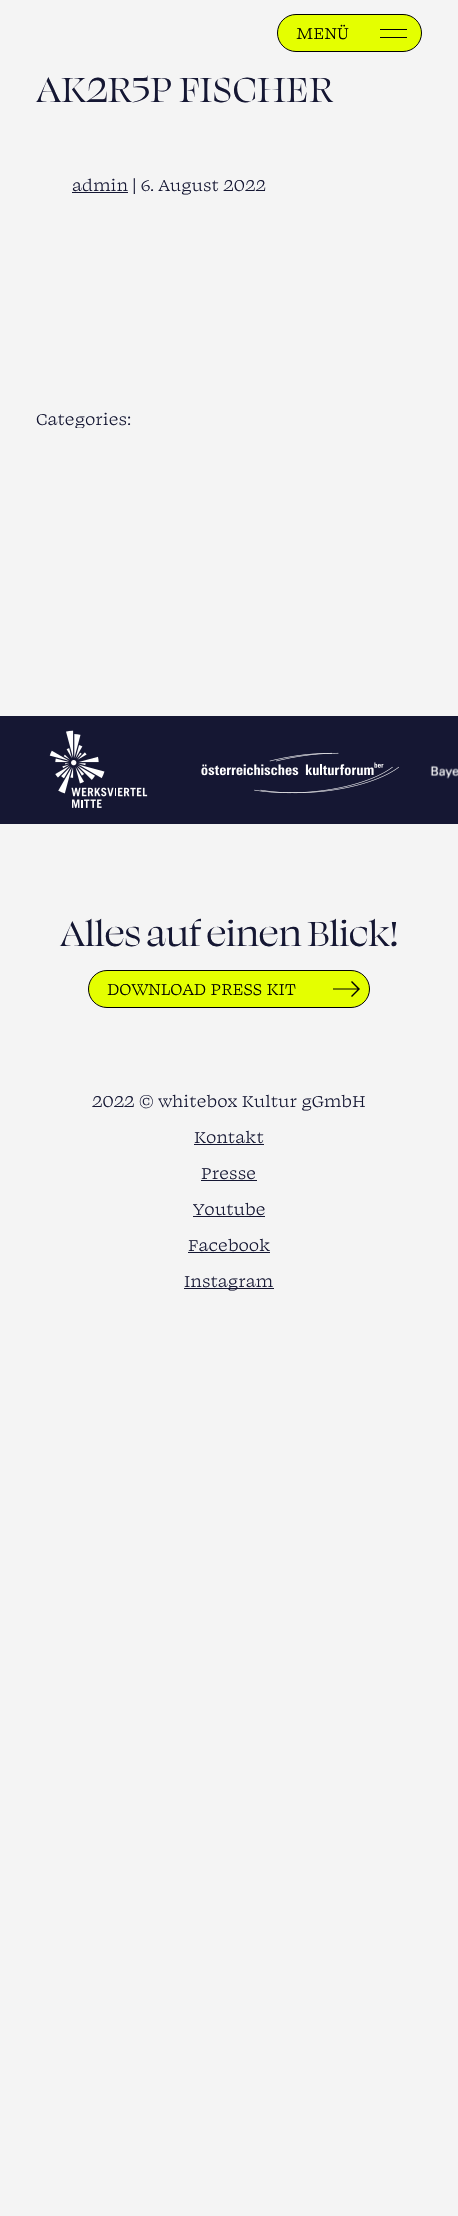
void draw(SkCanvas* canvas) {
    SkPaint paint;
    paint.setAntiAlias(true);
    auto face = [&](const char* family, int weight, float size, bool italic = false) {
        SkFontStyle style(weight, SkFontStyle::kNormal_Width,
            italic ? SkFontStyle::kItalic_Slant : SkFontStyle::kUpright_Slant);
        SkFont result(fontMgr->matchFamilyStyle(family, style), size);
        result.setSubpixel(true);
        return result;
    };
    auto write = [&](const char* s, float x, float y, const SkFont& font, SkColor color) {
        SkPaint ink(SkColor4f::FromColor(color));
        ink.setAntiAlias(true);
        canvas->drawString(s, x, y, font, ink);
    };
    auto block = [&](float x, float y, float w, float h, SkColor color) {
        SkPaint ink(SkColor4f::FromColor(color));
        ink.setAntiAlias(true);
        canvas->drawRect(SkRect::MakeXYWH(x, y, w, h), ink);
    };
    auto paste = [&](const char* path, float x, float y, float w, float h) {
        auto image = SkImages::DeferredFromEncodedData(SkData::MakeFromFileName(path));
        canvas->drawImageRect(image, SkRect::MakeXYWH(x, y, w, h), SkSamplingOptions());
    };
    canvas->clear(SkColorSetRGB(244, 244, 244));
    paint.setColor(SkColorSetRGB(228, 255, 0));
    canvas->drawRoundRect(SkRect::MakeXYWH(277.5f, 14.5f, 144, 37), 18.5f, 18.5f, paint);
    paint.setStyle(SkPaint::kStroke_Style);
    paint.setStrokeWidth(1);
    paint.setColor(SK_ColorBLACK);
    canvas->drawRoundRect(SkRect::MakeXYWH(277.5f, 14.5f, 144, 37), 18.5f, 18.5f, paint);
    auto kFont1 = face("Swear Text", 400, 18);
    write("MENÜ", 296, 39, kFont1, SK_ColorBLACK);
    block(380, 29, 27, 1, SK_ColorBLACK);
    block(380, 37, 27, 1, SK_ColorBLACK);
    auto kFont2 = face("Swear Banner", 400, 40);
    write("AK2R5P FISCHER", 36, 102, kFont2, SkColorSetRGB(21, 23, 51));
    block(72, 192, 56, 1, SkColorSetRGB(21, 23, 51));
    write("admin | 6. August 2022", 72, 191, kFont1, SkColorSetRGB(21, 23, 51));
    write("Categories:", 36, 425, kFont1, SkColorSetRGB(21, 23, 51));
    block(76, 428, 6, 1, SkColorSetRGB(244, 244, 244));
    block(0, 716, 458, 108, SkColorSetRGB(21, 23, 51));
    paste("pic1.png", 49, 730, 99, 78);
    paste("pic2.png", 201, 752, 198, 42);
    paste("pic3.png", 430, 765, 28, 14);
    write("Alles auf einen Blick!", 60, 946, kFont2, SkColorSetRGB(21, 23, 51));
    paint.setStyle(SkPaint::kFill_Style);
    paint.setColor(SkColorSetRGB(228, 255, 0));
    canvas->drawRoundRect(SkRect::MakeXYWH(88.5f, 970.5f, 281, 37), 18.5f, 18.5f, paint);
    paint.setStyle(SkPaint::kStroke_Style);
    paint.setColor(SK_ColorBLACK);
    canvas->drawRoundRect(SkRect::MakeXYWH(88.5f, 970.5f, 281, 37), 18.5f, 18.5f, paint);
    write("DOWNLOAD PRESS KIT", 107, 995, kFont1, SK_ColorBLACK);
    paint.setStyle(SkPaint::kFill_Style);
    canvas->drawPath(SkPathBuilder().moveTo(360, 989).lineTo(352, 981).lineTo(351, 982).lineTo(357.5f, 988.5f).lineTo(333, 988.5f).lineTo(333, 989.5f).lineTo(357.5f, 989.5f).lineTo(351, 996).lineTo(352, 997).close().detach(), paint);
    write("2022 © whitebox Kultur gGmbH", 92, 1107, kFont1, SkColorSetRGB(21, 23, 51));
    write("Kontakt", 194, 1143, kFont1, SkColorSetRGB(21, 23, 51));
    block(194, 1144, 70, 1, SkColorSetRGB(21, 23, 51));
    write("Presse", 201, 1179, kFont1, SkColorSetRGB(21, 23, 51));
    block(201, 1180, 56, 1, SkColorSetRGB(21, 23, 51));
    write("Youtube", 193, 1215, kFont1, SkColorSetRGB(21, 23, 51));
    block(193, 1216, 72, 1, SkColorSetRGB(21, 23, 51));
    write("Facebook", 188, 1251, kFont1, SkColorSetRGB(21, 23, 51));
    block(188, 1252, 82, 1, SkColorSetRGB(21, 23, 51));
    block(184, 1288, 90, 1, SkColorSetRGB(21, 23, 51));
    write("Instagram", 184, 1287, kFont1, SkColorSetRGB(21, 23, 51));
}
